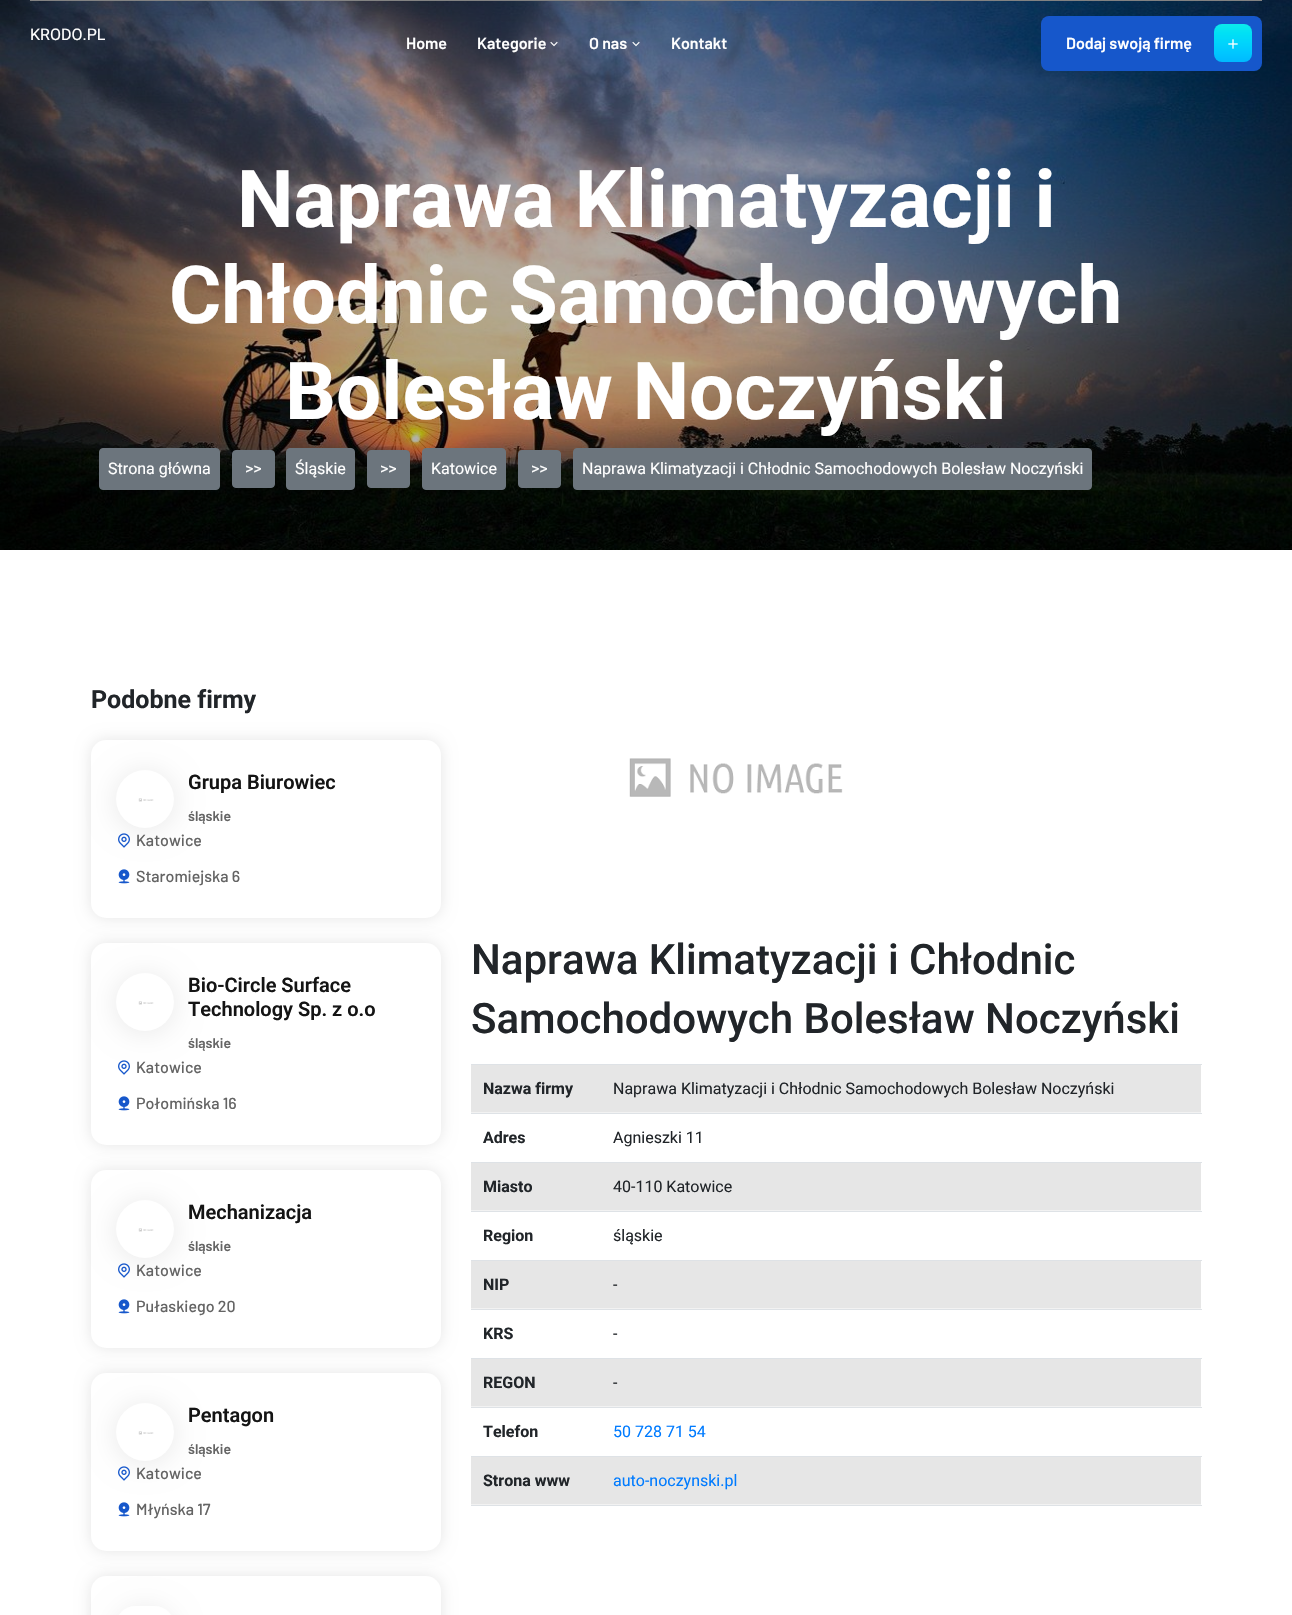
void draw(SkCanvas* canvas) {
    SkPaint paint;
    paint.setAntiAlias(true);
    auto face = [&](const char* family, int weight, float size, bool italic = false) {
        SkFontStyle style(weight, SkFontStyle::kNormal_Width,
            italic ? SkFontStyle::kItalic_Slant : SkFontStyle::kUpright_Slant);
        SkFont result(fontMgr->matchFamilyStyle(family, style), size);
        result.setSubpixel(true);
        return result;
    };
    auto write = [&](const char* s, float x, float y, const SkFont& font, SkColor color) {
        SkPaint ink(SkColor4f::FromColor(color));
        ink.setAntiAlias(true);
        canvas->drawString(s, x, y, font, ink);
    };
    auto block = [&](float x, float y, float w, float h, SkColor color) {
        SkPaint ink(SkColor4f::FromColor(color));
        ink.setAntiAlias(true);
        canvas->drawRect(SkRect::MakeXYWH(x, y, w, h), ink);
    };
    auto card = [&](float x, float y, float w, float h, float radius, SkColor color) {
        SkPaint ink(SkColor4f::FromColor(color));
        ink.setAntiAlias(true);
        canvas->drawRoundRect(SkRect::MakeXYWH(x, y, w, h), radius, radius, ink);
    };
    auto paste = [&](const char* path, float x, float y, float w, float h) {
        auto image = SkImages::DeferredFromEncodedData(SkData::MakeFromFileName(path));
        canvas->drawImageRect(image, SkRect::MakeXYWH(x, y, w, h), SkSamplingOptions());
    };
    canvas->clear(SK_ColorWHITE);
    paste("pic4.png", 0, 0, 1292, 550);
    block(30, 0, 1232, 1, SkColorSetRGB(130, 130, 130));
    auto kFont1 = face("Roboto", 400, 16);
    write("KRODO.PL", 30, 40, kFont1, SK_ColorWHITE);
    auto kFont2 = face("Barlow", 600, 16);
    write("Home", 406, 49, kFont2, SK_ColorWHITE);
    write("Kategorie", 477, 49, kFont2, SK_ColorWHITE);
    paste("pic1.png", 550, 41, 8, 6);
    write("O nas", 589, 49, kFont2, SK_ColorWHITE);
    paste("pic2.png", 632, 41, 8, 6);
    write("Kontakt", 671, 49, kFont2, SK_ColorWHITE);
    card(1041, 16, 221, 55, 8, SkColorSetRGB(22, 87, 203));
    write("Dodaj swoją firmę", 1066, 49, kFont2, SK_ColorWHITE);
    {
        const SkColor colors[] = {SkColorSetRGB(0, 185, 255), SkColorSetRGB(0, 199, 255), SkColorSetRGB(0, 212, 252), SkColorSetRGB(0, 224, 245), SkColorSetRGB(12, 235, 235)};
        const float stops[] = {0, 0.25f, 0.5f, 0.75f, 1};
        const SkPoint ends[] = {{1233, 62}, {1233, 24}};
        paint.setShader(SkGradientShader::MakeLinear(ends, colors, stops, 5, SkTileMode::kClamp));
        paint.setAlpha(255);
    }
    canvas->drawRoundRect(SkRect::MakeXYWH(1214, 24, 38, 38), 8, 8, paint);
    paste("pic3.png", 1228, 39, 10, 10);
    auto kFont3 = face("Roboto", 700, 80);
    write("Naprawa Klimatyzacji i", 237, 227, kFont3, SK_ColorWHITE);
    write("Chłodnic Samochodowych", 169, 323, kFont3, SK_ColorWHITE);
    write("Bolesław Noczyński", 285, 419, kFont3, SK_ColorWHITE);
    paint.setShader(nullptr);
    paint.setColor(SkColorSetRGB(108, 117, 125));
    canvas->drawRoundRect(SkRect::MakeXYWH(99.5f, 448.5f, 120, 41), 3.5f, 3.5f, paint);
    paint.setStyle(SkPaint::kStroke_Style);
    paint.setStrokeWidth(1);
    canvas->drawRoundRect(SkRect::MakeXYWH(99.5f, 448.5f, 120, 41), 3.5f, 3.5f, paint);
    write("Strona główna", 108, 474, kFont1, SK_ColorWHITE);
    paint.setStyle(SkPaint::kFill_Style);
    canvas->drawRoundRect(SkRect::MakeXYWH(232.5f, 450.5f, 42, 37), 3.5f, 3.5f, paint);
    paint.setStyle(SkPaint::kStroke_Style);
    canvas->drawRoundRect(SkRect::MakeXYWH(232.5f, 450.5f, 42, 37), 3.5f, 3.5f, paint);
    write(">>", 245, 474, kFont1, SK_ColorWHITE);
    paint.setStyle(SkPaint::kFill_Style);
    canvas->drawRoundRect(SkRect::MakeXYWH(286.5f, 448.5f, 68, 41), 3.5f, 3.5f, paint);
    paint.setStyle(SkPaint::kStroke_Style);
    canvas->drawRoundRect(SkRect::MakeXYWH(286.5f, 448.5f, 68, 41), 3.5f, 3.5f, paint);
    write("Śląskie", 295, 474, kFont1, SK_ColorWHITE);
    paint.setStyle(SkPaint::kFill_Style);
    canvas->drawRoundRect(SkRect::MakeXYWH(367.5f, 450.5f, 42, 37), 3.5f, 3.5f, paint);
    paint.setStyle(SkPaint::kStroke_Style);
    canvas->drawRoundRect(SkRect::MakeXYWH(367.5f, 450.5f, 42, 37), 3.5f, 3.5f, paint);
    write(">>", 380, 474, kFont1, SK_ColorWHITE);
    paint.setStyle(SkPaint::kFill_Style);
    canvas->drawRoundRect(SkRect::MakeXYWH(422.5f, 448.5f, 83, 41), 3.5f, 3.5f, paint);
    paint.setStyle(SkPaint::kStroke_Style);
    canvas->drawRoundRect(SkRect::MakeXYWH(422.5f, 448.5f, 83, 41), 3.5f, 3.5f, paint);
    write("Katowice", 431, 474, kFont1, SK_ColorWHITE);
    paint.setStyle(SkPaint::kFill_Style);
    canvas->drawRoundRect(SkRect::MakeXYWH(518.5f, 450.5f, 42, 37), 3.5f, 3.5f, paint);
    paint.setStyle(SkPaint::kStroke_Style);
    canvas->drawRoundRect(SkRect::MakeXYWH(518.5f, 450.5f, 42, 37), 3.5f, 3.5f, paint);
    write(">>", 531, 474, kFont1, SK_ColorWHITE);
    paint.setStyle(SkPaint::kFill_Style);
    canvas->drawRoundRect(SkRect::MakeXYWH(573.5f, 448.5f, 518, 41), 3.5f, 3.5f, paint);
    paint.setStyle(SkPaint::kStroke_Style);
    canvas->drawRoundRect(SkRect::MakeXYWH(573.5f, 448.5f, 518, 41), 3.5f, 3.5f, paint);
    write("Naprawa Klimatyzacji i Chłodnic Samochodowych Bolesław Noczyński", 582, 474, kFont1, SK_ColorWHITE);
    auto kFont4 = face("Roboto", 700, 25);
    write("Podobne firmy", 91, 708, kFont4, SkColorSetRGB(33, 37, 41));
    paint.setStyle(SkPaint::kFill_Style);
    paint.setColor(SkColorSetARGB(26, 0, 0, 0));
    paint.setMaskFilter(SkMaskFilter::MakeBlur(kNormal_SkBlurStyle, 7.5f));
    canvas->drawRoundRect(SkRect::MakeXYWH(91, 740, 350, 178), 15, 15, paint);
    paint.setMaskFilter(nullptr);
    card(91, 740, 350, 178, 15, SK_ColorWHITE);
    paint.setColor(SkColorSetARGB(23, 0, 0, 0));
    paint.setMaskFilter(SkMaskFilter::MakeBlur(kNormal_SkBlurStyle, 14));
    canvas->drawRoundRect(SkRect::MakeXYWH(116, 772, 58, 58), 29, 29, paint);
    paint.setMaskFilter(nullptr);
    paint.setColor(SK_ColorWHITE);
    canvas->drawCircle(145, 799, 29, paint);
    paste("pic5.png", 138, 798, 16, 4);
    auto kFont5 = face("Roboto", 600, 20);
    write("Grupa Biurowiec", 188, 789, kFont5, SkColorSetRGB(20, 20, 20));
    auto kFont6 = face("Barlow", 600, 14);
    write("śląskie", 188, 821, kFont6, SkColorSetRGB(100, 100, 100));
    paste("pic6.png", 118, 833, 12, 15);
    auto kFont7 = face("Barlow", 500, 16);
    write("Katowice", 136, 846, kFont7, SkColorSetRGB(100, 100, 100));
    paste("pic7.png", 118, 869, 12, 15);
    write("Staromiejska 6", 136, 882, kFont7, SkColorSetRGB(100, 100, 100));
    paint.setColor(SkColorSetARGB(26, 0, 0, 0));
    paint.setMaskFilter(SkMaskFilter::MakeBlur(kNormal_SkBlurStyle, 7.5f));
    canvas->drawRoundRect(SkRect::MakeXYWH(91, 943, 350, 202), 15, 15, paint);
    paint.setMaskFilter(nullptr);
    card(91, 943, 350, 202, 15, SK_ColorWHITE);
    paint.setColor(SkColorSetARGB(23, 0, 0, 0));
    paint.setMaskFilter(SkMaskFilter::MakeBlur(kNormal_SkBlurStyle, 14));
    canvas->drawRoundRect(SkRect::MakeXYWH(116, 975, 58, 58), 29, 29, paint);
    paint.setMaskFilter(nullptr);
    paint.setColor(SK_ColorWHITE);
    canvas->drawCircle(145, 1002, 29, paint);
    paste("pic5.png", 138, 1001, 16, 4);
    write("Bio-Circle Surface", 188, 992, kFont5, SkColorSetRGB(20, 20, 20));
    write("Technology Sp. z o.o", 188, 1016, kFont5, SkColorSetRGB(20, 20, 20));
    write("śląskie", 188, 1048, kFont6, SkColorSetRGB(100, 100, 100));
    paste("pic8.png", 118, 1060, 12, 15);
    write("Katowice", 136, 1073, kFont7, SkColorSetRGB(100, 100, 100));
    paste("pic7.png", 118, 1096, 12, 15);
    write("Połomińska 16", 136, 1109, kFont7, SkColorSetRGB(100, 100, 100));
    paint.setColor(SkColorSetARGB(26, 0, 0, 0));
    paint.setMaskFilter(SkMaskFilter::MakeBlur(kNormal_SkBlurStyle, 7.5f));
    canvas->drawRoundRect(SkRect::MakeXYWH(91, 1170, 350, 178), 15, 15, paint);
    paint.setMaskFilter(nullptr);
    card(91, 1170, 350, 178, 15, SK_ColorWHITE);
    paint.setColor(SkColorSetARGB(23, 0, 0, 0));
    paint.setMaskFilter(SkMaskFilter::MakeBlur(kNormal_SkBlurStyle, 14));
    canvas->drawRoundRect(SkRect::MakeXYWH(116, 1202, 58, 58), 29, 29, paint);
    paint.setMaskFilter(nullptr);
    paint.setColor(SK_ColorWHITE);
    canvas->drawCircle(145, 1229, 29, paint);
    paste("pic5.png", 138, 1228, 16, 4);
    write("Mechanizacja", 188, 1219, kFont5, SkColorSetRGB(20, 20, 20));
    write("śląskie", 188, 1251, kFont6, SkColorSetRGB(100, 100, 100));
    paste("pic6.png", 118, 1263, 12, 15);
    write("Katowice", 136, 1276, kFont7, SkColorSetRGB(100, 100, 100));
    paste("pic7.png", 118, 1299, 12, 15);
    write("Pułaskiego 20", 136, 1312, kFont7, SkColorSetRGB(100, 100, 100));
    paint.setColor(SkColorSetARGB(26, 0, 0, 0));
    paint.setMaskFilter(SkMaskFilter::MakeBlur(kNormal_SkBlurStyle, 7.5f));
    canvas->drawRoundRect(SkRect::MakeXYWH(91, 1373, 350, 178), 15, 15, paint);
    paint.setMaskFilter(nullptr);
    card(91, 1373, 350, 178, 15, SK_ColorWHITE);
    paint.setColor(SkColorSetARGB(23, 0, 0, 0));
    paint.setMaskFilter(SkMaskFilter::MakeBlur(kNormal_SkBlurStyle, 14));
    canvas->drawRoundRect(SkRect::MakeXYWH(116, 1405, 58, 58), 29, 29, paint);
    paint.setMaskFilter(nullptr);
    paint.setColor(SK_ColorWHITE);
    canvas->drawCircle(145, 1432, 29, paint);
    paste("pic5.png", 138, 1431, 16, 4);
    write("Pentagon", 188, 1422, kFont5, SkColorSetRGB(20, 20, 20));
    write("śląskie", 188, 1454, kFont6, SkColorSetRGB(100, 100, 100));
    paste("pic6.png", 118, 1466, 12, 15);
    write("Katowice", 136, 1479, kFont7, SkColorSetRGB(100, 100, 100));
    paste("pic7.png", 118, 1502, 12, 15);
    write("Młyńska 17", 136, 1515, kFont7, SkColorSetRGB(100, 100, 100));
    paint.setColor(SkColorSetARGB(26, 0, 0, 0));
    paint.setMaskFilter(SkMaskFilter::MakeBlur(kNormal_SkBlurStyle, 7.5f));
    canvas->drawRoundRect(SkRect::MakeXYWH(91, 1576, 350, 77), 15, 15, paint);
    paint.setMaskFilter(nullptr);
    card(91, 1576, 350, 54, 15, SK_ColorWHITE);
    paint.setColor(SkColorSetARGB(23, 0, 0, 0));
    paint.setMaskFilter(SkMaskFilter::MakeBlur(kNormal_SkBlurStyle, 14));
    canvas->drawRoundRect(SkRect::MakeXYWH(116, 1608, 58, 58), 29, 29, paint);
    paint.setMaskFilter(nullptr);
    card(116, 1606, 58, 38, 29, SK_ColorWHITE);
    paste("pic9.png", 629, 758, 214, 39);
    auto kFont8 = face("Roboto", 500, 42);
    write("Naprawa Klimatyzacji i Chłodnic", 471, 974, kFont8, SkColorSetRGB(33, 37, 41));
    write("Samochodowych Bolesław Noczyński", 471, 1033, kFont8, SkColorSetRGB(33, 37, 41));
    block(471, 1112, 730, 1, SkColorSetRGB(242, 242, 242));
    block(471, 1065, 730, 47, SkColorSetRGB(230, 230, 230));
    auto kFont9 = face("Roboto", 700, 16);
    write("Nazwa firmy", 483, 1094, kFont9, SkColorSetRGB(33, 37, 41));
    block(471, 1064, 731, 1, SkColorSetRGB(222, 226, 230));
    write("Naprawa Klimatyzacji i Chłodnic Samochodowych Bolesław Noczyński", 613, 1094, kFont1, SkColorSetRGB(33, 37, 41));
    write("Adres", 483, 1143, kFont9, SkColorSetRGB(33, 37, 41));
    block(471, 1113, 731, 1, SkColorSetRGB(222, 226, 230));
    write("Agnieszki 11", 613, 1143, kFont1, SkColorSetRGB(33, 37, 41));
    block(471, 1210, 730, 1, SkColorSetRGB(242, 242, 242));
    block(471, 1163, 730, 47, SkColorSetRGB(230, 230, 230));
    write("Miasto", 483, 1192, kFont9, SkColorSetRGB(33, 37, 41));
    block(471, 1162, 731, 1, SkColorSetRGB(222, 226, 230));
    write("40-110 Katowice", 613, 1192, kFont1, SkColorSetRGB(33, 37, 41));
    write("Region", 483, 1241, kFont9, SkColorSetRGB(33, 37, 41));
    block(471, 1211, 731, 1, SkColorSetRGB(222, 226, 230));
    write("śląskie", 613, 1241, kFont1, SkColorSetRGB(33, 37, 41));
    block(471, 1308, 730, 1, SkColorSetRGB(242, 242, 242));
    block(471, 1261, 730, 47, SkColorSetRGB(230, 230, 230));
    write("NIP", 483, 1290, kFont9, SkColorSetRGB(33, 37, 41));
    block(471, 1260, 731, 1, SkColorSetRGB(222, 226, 230));
    write("-", 613, 1290, kFont1, SkColorSetRGB(33, 37, 41));
    write("KRS", 483, 1339, kFont9, SkColorSetRGB(33, 37, 41));
    block(471, 1309, 731, 1, SkColorSetRGB(222, 226, 230));
    write("-", 613, 1339, kFont1, SkColorSetRGB(33, 37, 41));
    block(471, 1406, 730, 1, SkColorSetRGB(242, 242, 242));
    block(471, 1359, 730, 47, SkColorSetRGB(230, 230, 230));
    write("REGON", 483, 1388, kFont9, SkColorSetRGB(33, 37, 41));
    block(471, 1358, 731, 1, SkColorSetRGB(222, 226, 230));
    write("-", 613, 1388, kFont1, SkColorSetRGB(33, 37, 41));
    write("Telefon", 483, 1437, kFont9, SkColorSetRGB(33, 37, 41));
    block(471, 1407, 731, 1, SkColorSetRGB(222, 226, 230));
    write("50 728 71 54", 613, 1437, kFont1, SkColorSetRGB(0, 123, 255));
    block(471, 1504, 730, 1, SkColorSetRGB(242, 242, 242));
    block(471, 1457, 730, 47, SkColorSetRGB(230, 230, 230));
    write("Strona www", 483, 1486, kFont9, SkColorSetRGB(33, 37, 41));
    block(471, 1456, 731, 1, SkColorSetRGB(222, 226, 230));
    block(471, 1505, 731, 1, SkColorSetRGB(222, 226, 230));
    write("auto-noczynski.pl", 613, 1486, kFont1, SkColorSetRGB(0, 123, 255));
}
